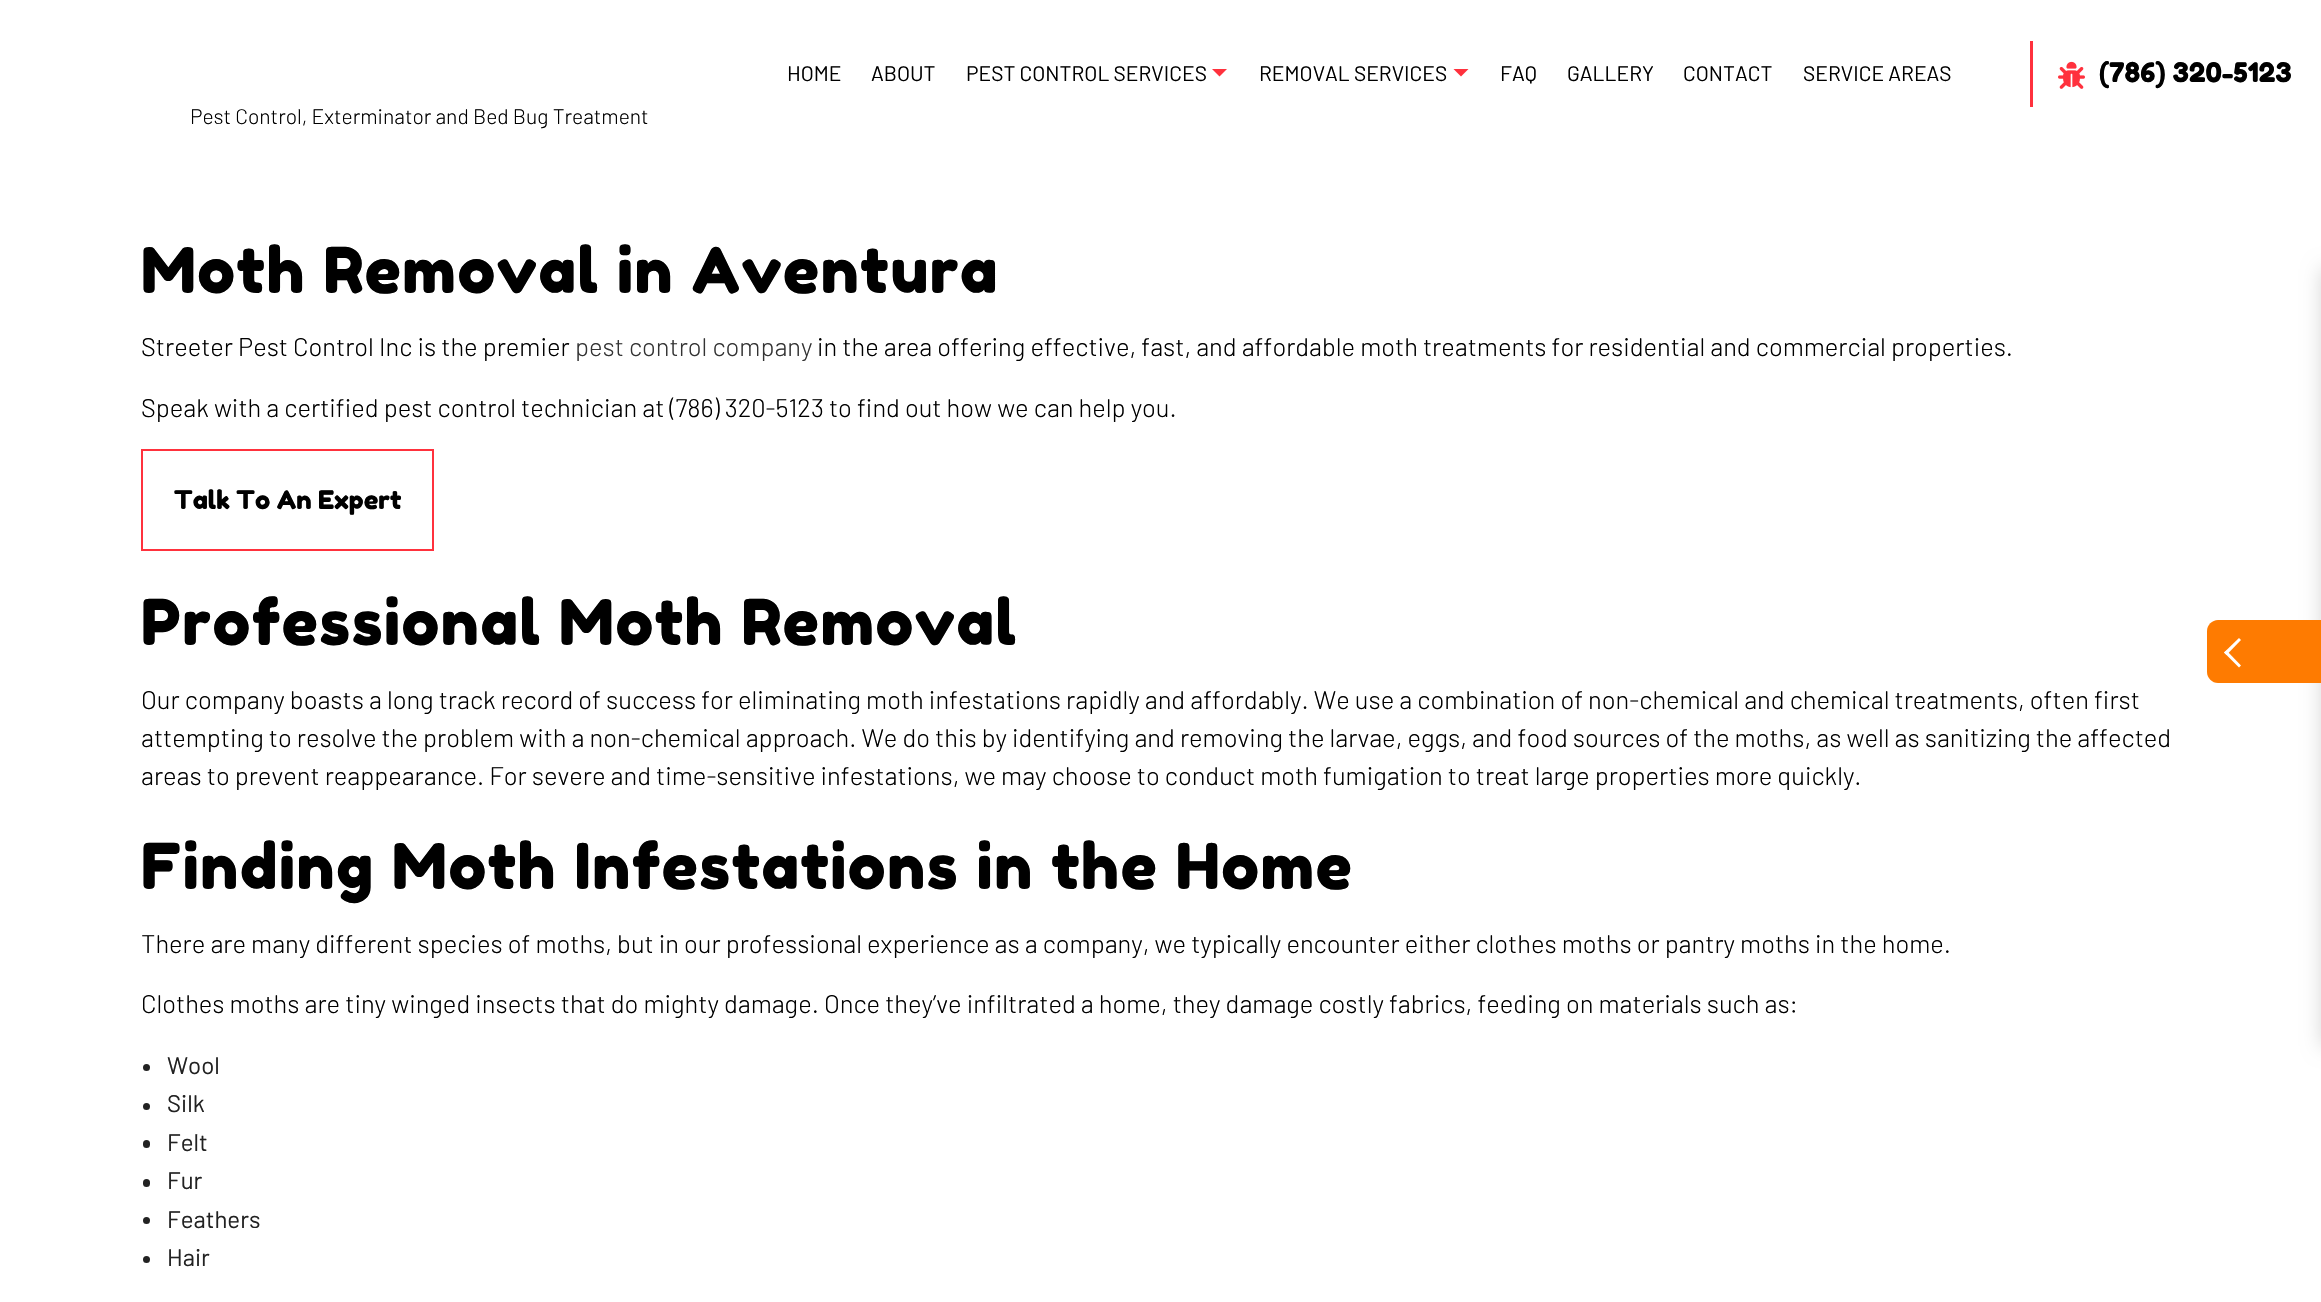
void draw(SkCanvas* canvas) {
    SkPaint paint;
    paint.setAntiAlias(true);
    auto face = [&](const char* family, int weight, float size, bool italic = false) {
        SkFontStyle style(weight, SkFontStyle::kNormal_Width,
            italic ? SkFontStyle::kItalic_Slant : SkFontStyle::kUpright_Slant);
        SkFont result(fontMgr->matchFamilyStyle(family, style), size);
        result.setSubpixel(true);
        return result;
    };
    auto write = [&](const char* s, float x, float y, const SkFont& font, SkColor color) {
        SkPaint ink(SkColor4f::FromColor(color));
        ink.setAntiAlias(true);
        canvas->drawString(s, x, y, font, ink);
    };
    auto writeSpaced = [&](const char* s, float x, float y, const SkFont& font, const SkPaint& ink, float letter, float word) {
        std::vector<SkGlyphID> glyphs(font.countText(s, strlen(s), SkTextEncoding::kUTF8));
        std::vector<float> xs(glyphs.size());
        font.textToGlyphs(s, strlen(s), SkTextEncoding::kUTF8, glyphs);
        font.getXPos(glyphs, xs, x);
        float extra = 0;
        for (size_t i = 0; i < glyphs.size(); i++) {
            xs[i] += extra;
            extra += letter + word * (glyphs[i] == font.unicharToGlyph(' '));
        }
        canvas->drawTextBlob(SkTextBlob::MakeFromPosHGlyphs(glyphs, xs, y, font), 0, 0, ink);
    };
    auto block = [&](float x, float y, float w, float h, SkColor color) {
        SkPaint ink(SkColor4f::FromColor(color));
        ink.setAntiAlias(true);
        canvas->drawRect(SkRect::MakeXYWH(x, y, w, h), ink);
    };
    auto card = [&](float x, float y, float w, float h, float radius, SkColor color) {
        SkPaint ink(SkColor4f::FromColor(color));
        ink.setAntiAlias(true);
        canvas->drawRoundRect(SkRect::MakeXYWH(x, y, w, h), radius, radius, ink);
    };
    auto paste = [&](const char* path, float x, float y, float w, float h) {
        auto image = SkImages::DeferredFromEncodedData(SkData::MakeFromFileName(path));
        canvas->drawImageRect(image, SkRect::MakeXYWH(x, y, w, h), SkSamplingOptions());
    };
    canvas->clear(SK_ColorWHITE);
    auto kFont1 = face("Barlow", 400, 21);
    write("HOME", 787, 81, kFont1, SK_ColorBLACK);
    write("ABOUT", 871, 81, kFont1, SK_ColorBLACK);
    write("PEST CONTROL SERVICES", 966, 81, kFont1, SK_ColorBLACK);
    paint.setColor(SkColorSetRGB(255, 49, 61));
    canvas->drawPath(SkPathBuilder().moveTo(1212, 69).lineTo(1227, 69).lineTo(1219.5f, 76.5f).close().detach(), paint);
    write("REMOVAL SERVICES", 1259, 81, kFont1, SK_ColorBLACK);
    canvas->drawPath(SkPathBuilder().moveTo(1453.5f, 69).lineTo(1468.5f, 69).lineTo(1461, 76.5f).close().detach(), paint);
    write("FAQ", 1500, 81, kFont1, SK_ColorBLACK);
    write("GALLERY", 1567, 81, kFont1, SK_ColorBLACK);
    write("CONTACT", 1683, 81, kFont1, SK_ColorBLACK);
    write("SERVICE AREAS", 1803, 81, kFont1, SK_ColorBLACK);
    block(2030, 41, 3, 66, SkColorSetRGB(255, 49, 61));
    paste("pic1.png", 2058, 61, 27, 28);
    auto kFont2 = face("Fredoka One", 400, 27);
    write("(786) 320-5123", 2099, 82, kFont2, SK_ColorBLACK);
    auto kFont3 = face("Barlow", 300, 21);
    write("Pest Control, Exterminator and Bed Bug Treatment", 190, 124, kFont3, SK_ColorBLACK);
    auto kFont4 = face("Fredoka One", 400, 63);
    paint.setColor(SK_ColorBLACK);
    writeSpaced("Moth Removal in Aventura", 141, 293, kFont4, paint, 1.5f, 0);
    auto kFont5 = face("Barlow", 300, 25.5f);
    write("Streeter Pest Control Inc is the premier", 141, 356, kFont5, SK_ColorBLACK);
    write("pest control company", 575, 356, kFont5, SkColorSetRGB(51, 51, 51));
    write("in the area offering effective, fast, and affordable moth treatments for residential and commercial properties.", 817, 356, kFont5, SK_ColorBLACK);
    write("Speak with a certified pest control technician at (786) 320-5123 to find out how we can help you.", 141, 417, kFont5, SK_ColorBLACK);
    paint.setStyle(SkPaint::kStroke_Style);
    paint.setStrokeWidth(2);
    paint.setColor(SkColorSetRGB(255, 49, 61));
    canvas->drawRect(SkRect::MakeXYWH(142, 450, 291, 100), paint);
    auto kFont6 = face("Fredoka One", 400, 25.5f);
    write("Talk To An Expert", 174, 509, kFont6, SK_ColorBLACK);
    paint.setStyle(SkPaint::kFill_Style);
    paint.setColor(SK_ColorBLACK);
    writeSpaced("Professional Moth Removal", 141, 645, kFont4, paint, 1.5f, 0);
    write("Our company boasts a long track record of success for eliminating moth infestations rapidly and affordably. We use a combination of non-chemical and chemical treatments, often first", 141, 709, kFont5, SK_ColorBLACK);
    write("attempting to resolve the problem with a non-chemical approach. We do this by identifying and removing the larvae, eggs, and food sources of the moths, as well as sanitizing the affected", 141, 747, kFont5, SK_ColorBLACK);
    write("areas to prevent reappearance. For severe and time-sensitive infestations, we may choose to conduct moth fumigation to treat large properties more quickly.", 141, 785, kFont5, SK_ColorBLACK);
    writeSpaced("Finding Moth Infestations in the Home", 141, 889, kFont4, paint, 1.5f, 0);
    write("There are many different species of moths, but in our professional experience as a company, we typically encounter either clothes moths or pantry moths in the home.", 141, 953, kFont5, SK_ColorBLACK);
    write("Clothes moths are tiny winged insects that do mighty damage. Once they’ve infiltrated a home, they damage costly fabrics, feeding on materials such as:", 141, 1013, kFont5, SK_ColorBLACK);
    paint.setColor(SkColorSetRGB(34, 34, 34));
    canvas->drawCircle(146.5f, 1067.5f, 3.5f, paint);
    auto kFont7 = face("Barlow", 400, 24);
    write("Wool", 167, 1074, kFont7, SkColorSetRGB(34, 34, 34));
    canvas->drawCircle(146.5f, 1106.5f, 3.5f, paint);
    write("Silk", 167, 1112, kFont7, SkColorSetRGB(34, 34, 34));
    card(143, 1140, 7, 8, 3.5f, SkColorSetRGB(34, 34, 34));
    write("Felt", 167, 1151, kFont7, SkColorSetRGB(34, 34, 34));
    card(143, 1179, 7, 8, 3.5f, SkColorSetRGB(34, 34, 34));
    write("Fur", 167, 1189, kFont7, SkColorSetRGB(34, 34, 34));
    canvas->drawCircle(146.5f, 1220.5f, 3.5f, paint);
    write("Feathers", 167, 1228, kFont7, SkColorSetRGB(34, 34, 34));
    canvas->drawCircle(146.5f, 1259.5f, 3.5f, paint);
    write("Hair", 167, 1266, kFont7, SkColorSetRGB(34, 34, 34));
    paint.setColor(SkColorSetARGB(43, 0, 0, 0));
    paint.setMaskFilter(SkMaskFilter::MakeBlur(kNormal_SkBlurStyle, 10));
    canvas->drawRect(SkRect::MakeXYWH(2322, 269, 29, 777), paint);
    paint.setMaskFilter(nullptr);
    paint.setColor(SkColorSetRGB(254, 123, 1));
    canvas->drawPath(SkPathBuilder().moveTo(2218, 620).lineTo(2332, 620).lineTo(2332, 683).lineTo(2218, 683).cubicTo(2212, 683, 2207, 678, 2207, 672).lineTo(2207, 631).cubicTo(2207, 625, 2212, 620, 2218, 620).close().detach(), paint);
    paint.setColor(SK_ColorWHITE);
    canvas->drawPath(SkPathBuilder().moveTo(2224, 652.5f).lineTo(2239, 638).lineTo(2241, 640).lineTo(2226.5f, 655).close().detach(), paint);
    canvas->drawPath(SkPathBuilder().moveTo(2224, 652.5f).lineTo(2226.5f, 650.5f).lineTo(2241, 665.5f).lineTo(2239, 667.5f).close().detach(), paint);
}
